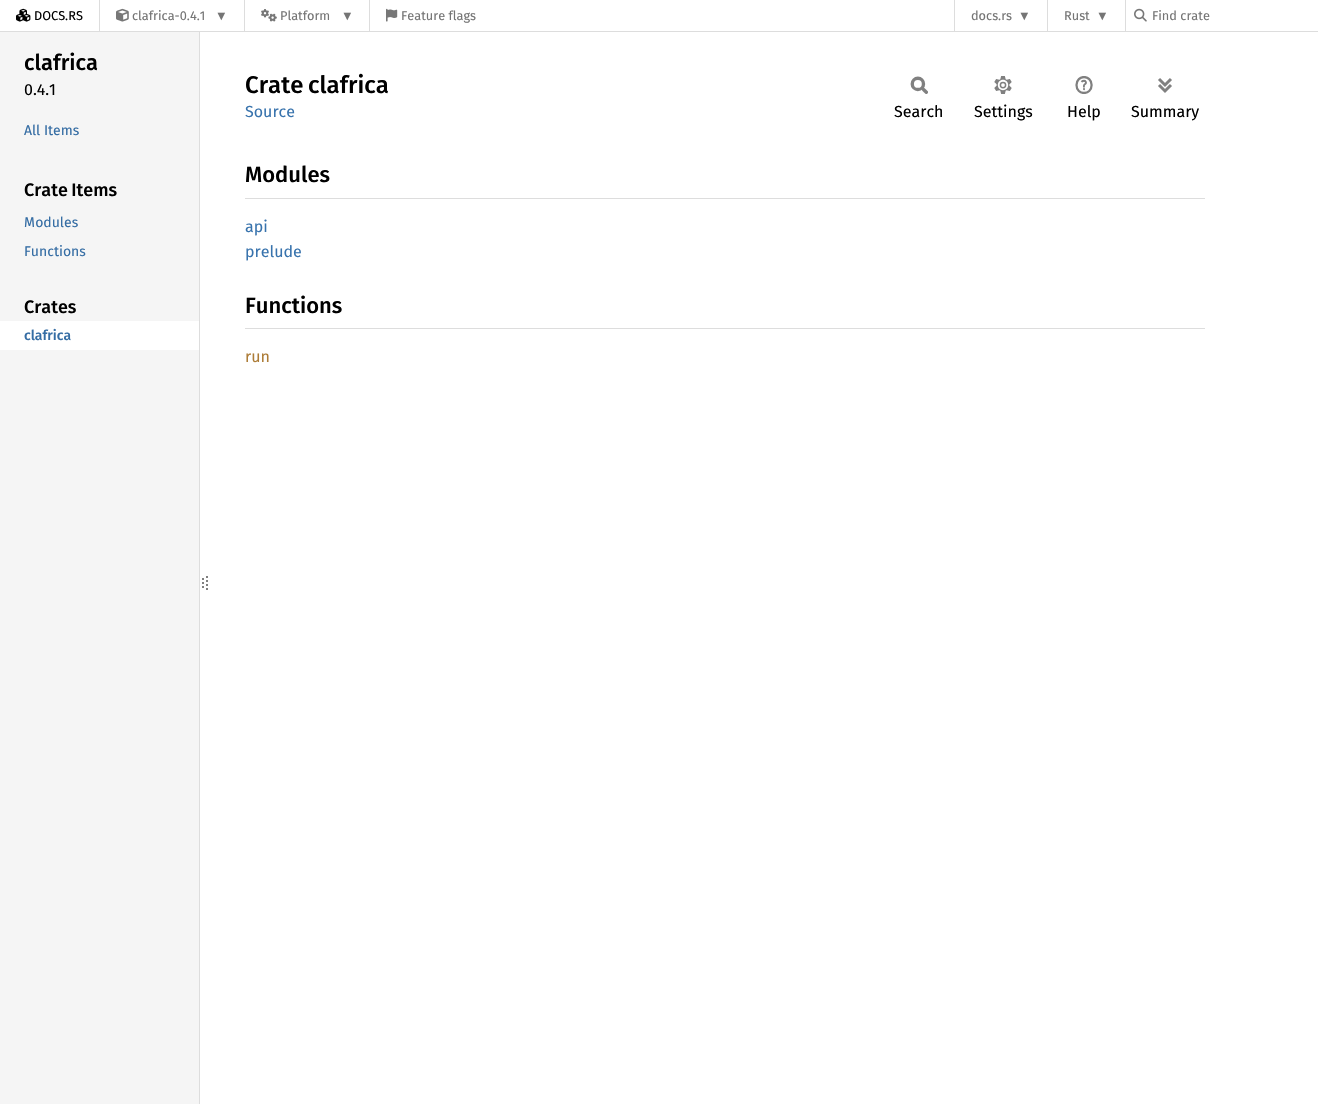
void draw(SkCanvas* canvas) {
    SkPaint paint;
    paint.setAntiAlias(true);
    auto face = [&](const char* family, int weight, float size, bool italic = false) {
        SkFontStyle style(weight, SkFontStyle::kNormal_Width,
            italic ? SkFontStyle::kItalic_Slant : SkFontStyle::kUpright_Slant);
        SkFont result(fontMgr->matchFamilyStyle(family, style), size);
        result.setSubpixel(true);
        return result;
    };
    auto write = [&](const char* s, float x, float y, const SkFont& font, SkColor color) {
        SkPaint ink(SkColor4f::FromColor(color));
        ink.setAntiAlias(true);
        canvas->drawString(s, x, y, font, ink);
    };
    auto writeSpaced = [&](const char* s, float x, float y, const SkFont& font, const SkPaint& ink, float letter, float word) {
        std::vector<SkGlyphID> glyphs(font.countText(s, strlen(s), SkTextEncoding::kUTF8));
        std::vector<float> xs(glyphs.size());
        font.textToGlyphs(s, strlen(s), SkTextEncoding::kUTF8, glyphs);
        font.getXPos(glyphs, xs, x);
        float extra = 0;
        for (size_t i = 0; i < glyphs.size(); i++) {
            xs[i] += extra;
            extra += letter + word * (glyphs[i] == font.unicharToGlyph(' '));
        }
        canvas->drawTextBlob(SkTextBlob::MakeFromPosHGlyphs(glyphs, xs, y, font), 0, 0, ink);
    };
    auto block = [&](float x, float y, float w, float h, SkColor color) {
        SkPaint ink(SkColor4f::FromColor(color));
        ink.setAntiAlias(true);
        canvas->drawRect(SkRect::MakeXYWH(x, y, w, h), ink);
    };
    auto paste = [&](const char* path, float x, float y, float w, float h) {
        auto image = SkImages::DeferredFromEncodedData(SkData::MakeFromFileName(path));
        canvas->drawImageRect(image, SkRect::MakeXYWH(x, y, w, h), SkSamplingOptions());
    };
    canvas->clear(SK_ColorWHITE);
    block(0, 31, 1318, 1, SkColorSetRGB(221, 221, 221));
    paste("pic1.png", 16, 8, 15, 14);
    auto kFont1 = face("Fira Sans", 400, 12.75f);
    write("DOCS.RS", 34, 20, kFont1, SK_ColorBLACK);
    block(99, 0, 1, 31, SkColorSetRGB(221, 221, 221));
    paste("pic2.png", 116, 8, 13, 14);
    write("clafrica-0.4.1", 132, 20, kFont1, SkColorSetRGB(117, 117, 117));
    auto kFont2 = face("Liberation Sans", 400, 12.75f);
    write("▼", 215, 20, kFont2, SkColorSetRGB(117, 117, 117));
    block(244, 0, 1, 31, SkColorSetRGB(221, 221, 221));
    paste("pic3.png", 261, 9, 16, 13);
    write("Platform", 280, 20, kFont1, SkColorSetRGB(117, 117, 117));
    write("▼", 341, 20, kFont2, SkColorSetRGB(117, 117, 117));
    block(369, 0, 1, 31, SkColorSetRGB(221, 221, 221));
    paste("pic4.png", 386, 8, 12, 14);
    write("Feature flags", 401, 20, kFont1, SkColorSetRGB(117, 117, 117));
    block(954, 0, 1, 31, SkColorSetRGB(221, 221, 221));
    write("docs.rs", 971, 20, kFont1, SkColorSetRGB(117, 117, 117));
    write("▼", 1018, 20, kFont2, SkColorSetRGB(117, 117, 117));
    block(1047, 0, 1, 31, SkColorSetRGB(221, 221, 221));
    write("Rust", 1064, 20, kFont1, SkColorSetRGB(117, 117, 117));
    write("▼", 1096, 20, kFont2, SkColorSetRGB(117, 117, 117));
    block(1125, 0, 1, 31, SkColorSetRGB(221, 221, 221));
    paste("pic5.png", 1134, 8, 13, 14);
    write("Find crate", 1152, 20, kFont1, SkColorSetRGB(117, 117, 117));
    block(0, 32, 199, 1072, SkColorSetRGB(245, 245, 245));
    block(199, 32, 1, 1072, SkColorSetRGB(221, 221, 221));
    auto kFont3 = face("Fira Sans", 500, 22);
    write("clafrica", 24, 70, kFont3, SK_ColorBLACK);
    auto kFont4 = face("Fira Sans", 400, 16);
    write("0.4.1", 24, 95, kFont4, SK_ColorBLACK);
    auto kFont5 = face("Fira Sans", 400, 14);
    write("All Items", 24, 135, kFont5, SkColorSetRGB(53, 109, 164));
    auto kFont6 = face("Fira Sans", 500, 18);
    paint.setColor(SK_ColorBLACK);
    writeSpaced("Crate Items", 24, 196, kFont6, paint, 0, -1);
    write("Modules", 24, 227, kFont5, SkColorSetRGB(53, 109, 164));
    write("Functions", 24, 256, kFont5, SkColorSetRGB(53, 109, 164));
    write("Crates", 24, 313, kFont6, SK_ColorBLACK);
    block(0, 321, 199, 29, SK_ColorWHITE);
    auto kFont7 = face("Fira Sans", 500, 14);
    write("clafrica", 24, 340, kFont7, SkColorSetRGB(53, 109, 164));
    auto kFont8 = face("Fira Sans", 500, 24);
    write("Crate", 245, 93, kFont8, SK_ColorBLACK);
    write("clafrica", 308, 93, kFont8, SK_ColorBLACK);
    write("Source", 245, 117, kFont4, SkColorSetRGB(56, 115, 173));
    paste("pic6.png", 910, 76, 18, 18);
    write("Search", 894, 117, kFont4, SK_ColorBLACK);
    paste("pic7.png", 994, 76, 18, 18);
    write("Settings", 974, 117, kFont4, SK_ColorBLACK);
    paste("pic8.png", 1075, 76, 18, 18);
    write("Help", 1067, 117, kFont4, SK_ColorBLACK);
    paste("pic9.png", 1158, 78, 14, 15);
    write("Summary", 1131, 117, kFont4, SK_ColorBLACK);
    block(245, 198, 960, 1, SkColorSetRGB(221, 221, 221));
    write("Modules", 245, 182, kFont3, SK_ColorBLACK);
    write("api", 245, 232, kFont4, SkColorSetRGB(56, 115, 173));
    write("prelude", 245, 257, kFont4, SkColorSetRGB(56, 115, 173));
    block(245, 328, 960, 1, SkColorSetRGB(221, 221, 221));
    write("Functions", 245, 313, kFont3, SK_ColorBLACK);
    write("run", 245, 362, kFont4, SkColorSetRGB(173, 124, 55));
    paint.setStyle(SkPaint::kStroke_Style);
    paint.setStrokeWidth(2);
    paint.setColor(SkColorSetRGB(128, 128, 128));
    canvas->drawPath(SkPathBuilder().moveTo(203, 578).lineTo(203, 580).moveTo(203, 582).lineTo(203, 584).moveTo(203, 586).lineTo(203, 588).detach(), paint);
    paint.setPathEffect(SkDashPathEffect::Make({{2, 2}}, 0));
    canvas->drawPath(SkPathBuilder().moveTo(207, 576).lineTo(207, 592).detach(), paint);
    paint.setPathEffect(nullptr);
}
